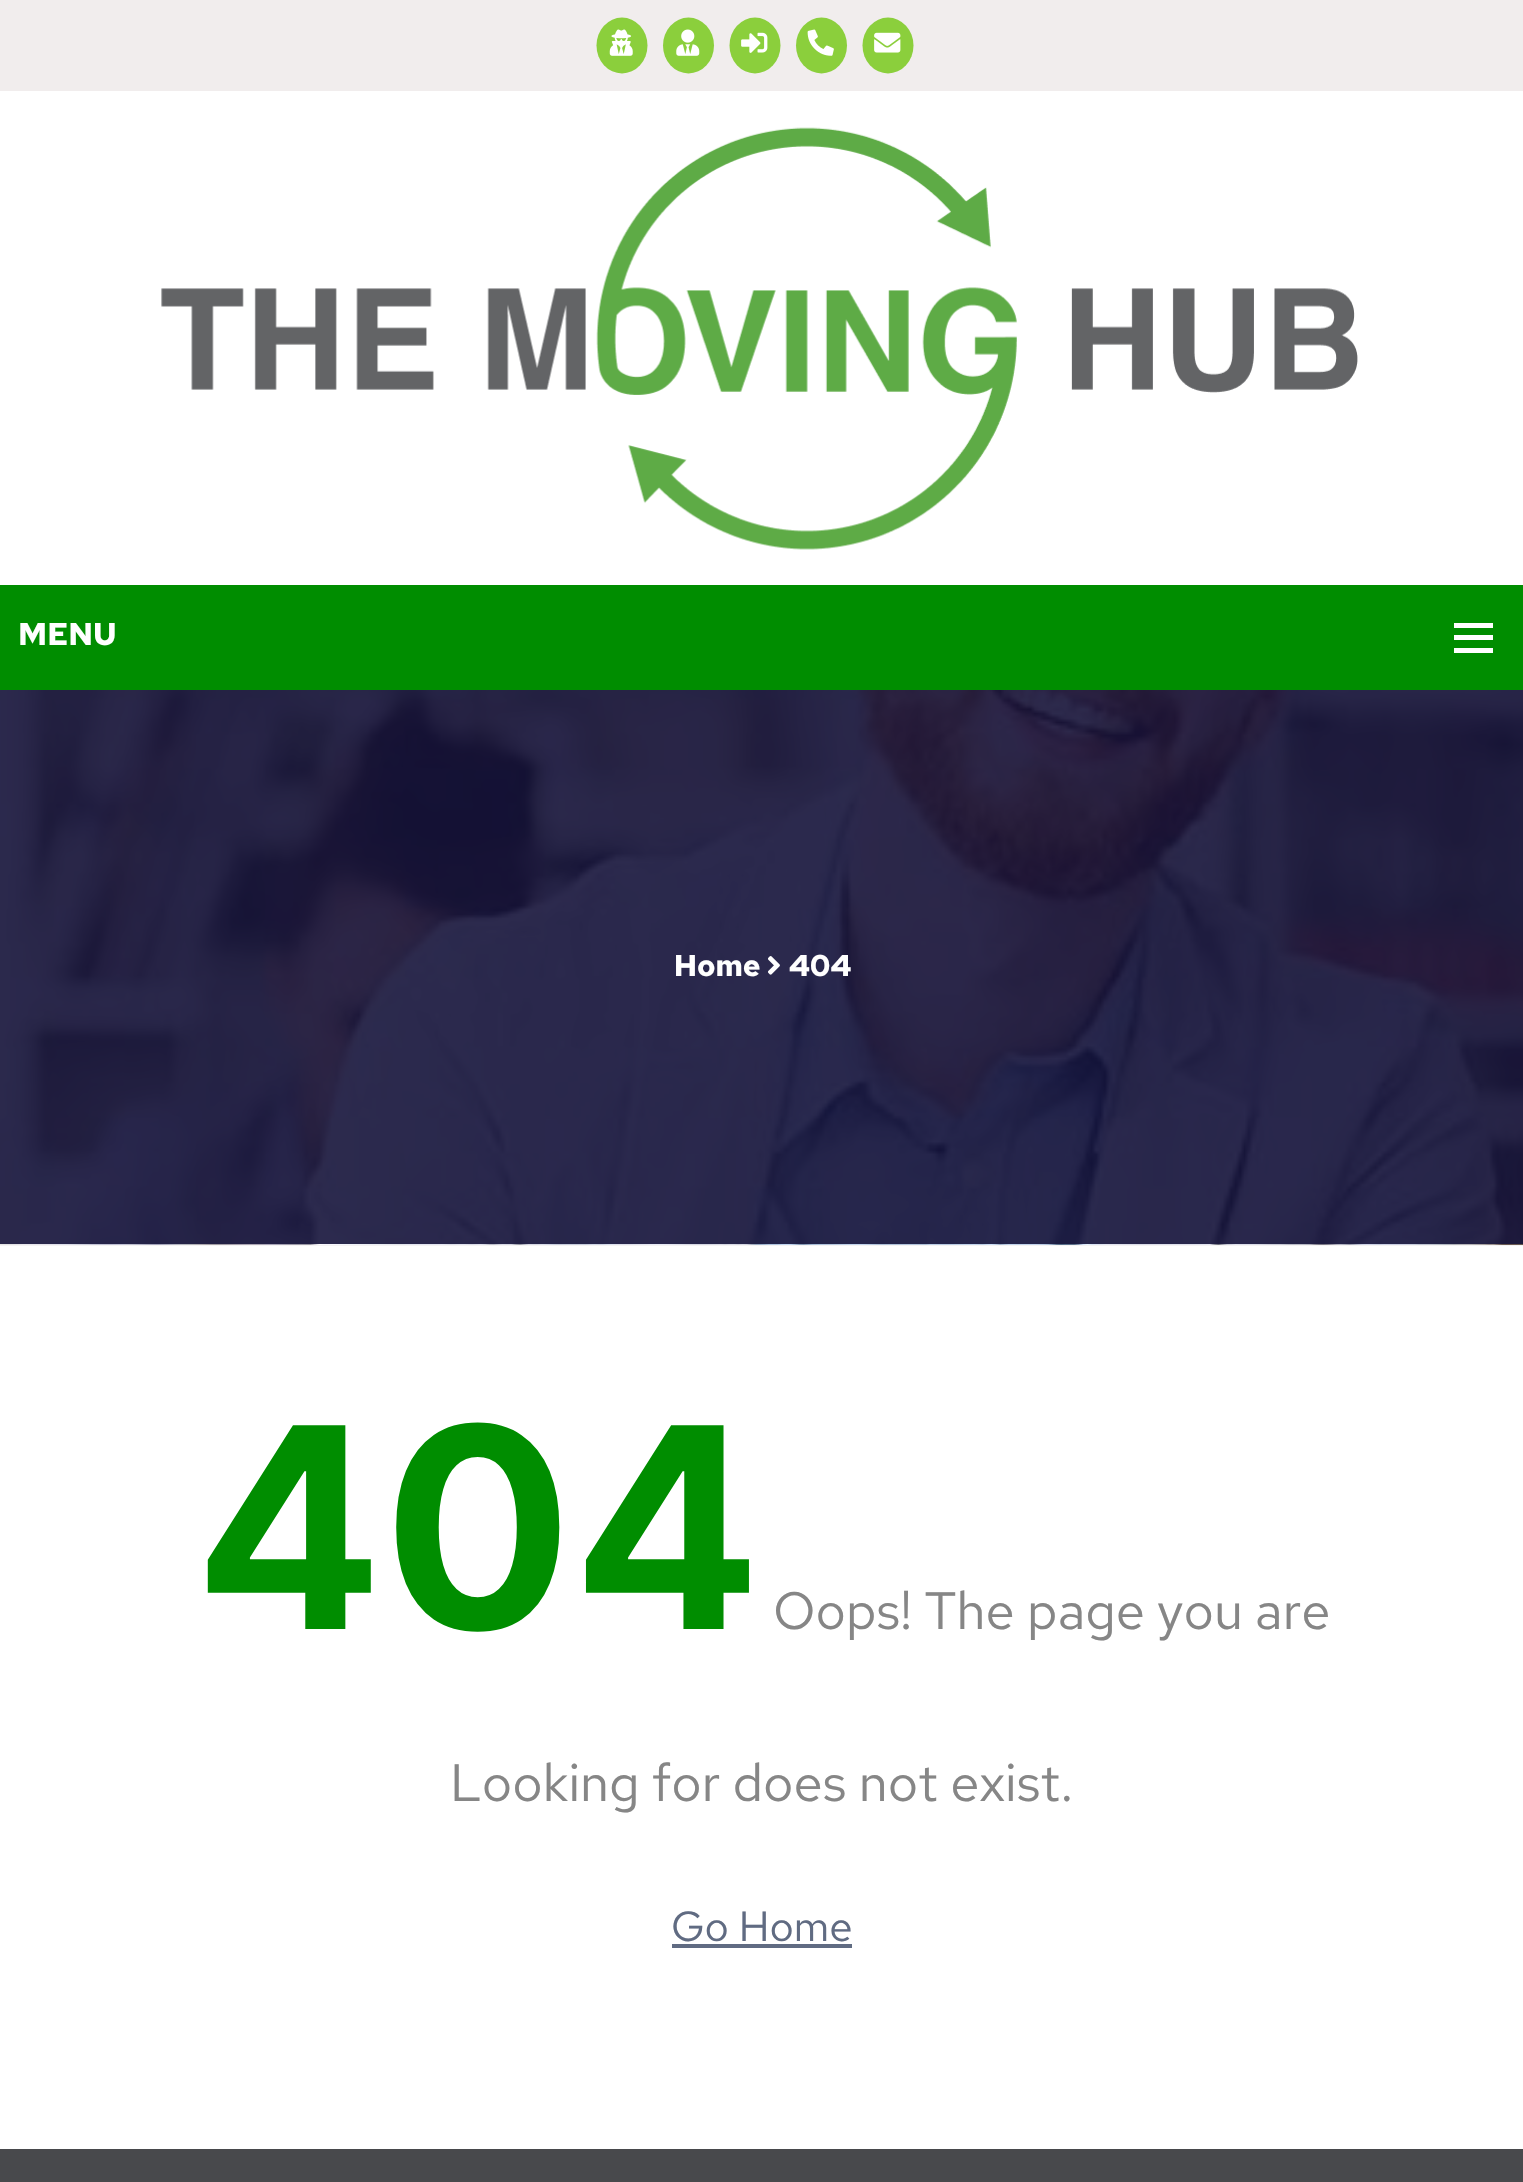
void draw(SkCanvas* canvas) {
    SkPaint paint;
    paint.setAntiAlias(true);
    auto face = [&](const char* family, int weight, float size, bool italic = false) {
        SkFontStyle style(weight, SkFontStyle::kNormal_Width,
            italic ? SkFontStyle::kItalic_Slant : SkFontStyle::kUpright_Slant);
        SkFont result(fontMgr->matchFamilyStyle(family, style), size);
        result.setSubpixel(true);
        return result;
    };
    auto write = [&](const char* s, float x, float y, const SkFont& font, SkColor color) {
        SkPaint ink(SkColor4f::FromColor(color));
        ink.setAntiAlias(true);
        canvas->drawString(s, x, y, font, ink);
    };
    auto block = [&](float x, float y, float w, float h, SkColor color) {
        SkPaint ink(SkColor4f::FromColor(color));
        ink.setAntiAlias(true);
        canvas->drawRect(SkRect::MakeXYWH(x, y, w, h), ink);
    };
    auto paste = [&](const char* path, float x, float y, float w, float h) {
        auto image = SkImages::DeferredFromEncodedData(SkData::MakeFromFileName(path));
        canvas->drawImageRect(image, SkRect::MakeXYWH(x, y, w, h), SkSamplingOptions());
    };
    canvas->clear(SK_ColorWHITE);
    block(0, 0, 1523, 91, SkColorSetRGB(241, 237, 237));
    paint.setColor(SkColorSetRGB(139, 207, 60));
    canvas->drawOval(SkRect::MakeXYWH(596.5f, 17.5f, 51, 56), paint);
    paste("pic1.png", 609, 29, 24, 27);
    canvas->drawOval(SkRect::MakeXYWH(663, 17.5f, 51, 56), paint);
    paste("pic2.png", 676, 29, 24, 27);
    canvas->drawOval(SkRect::MakeXYWH(729.5f, 17.5f, 51, 56), paint);
    paste("pic3.png", 741, 32, 27, 21);
    canvas->drawOval(SkRect::MakeXYWH(796, 17.5f, 51, 56), paint);
    paste("pic4.png", 807, 29, 27, 27);
    canvas->drawOval(SkRect::MakeXYWH(862.5f, 17.5f, 51, 56), paint);
    paste("pic5.png", 874, 32, 27, 21);
    paste("pic6.png", 161, 127, 1197, 423);
    block(0, 585, 1523, 105, SkColorSetRGB(0, 141, 0));
    auto kFont1 = face("Red Hat Text", 700, 31.5f);
    write("MENU", 18, 645, kFont1, SK_ColorWHITE);
    block(1454, 623, 39, 5, SK_ColorWHITE);
    block(1454, 635, 39, 5, SK_ColorWHITE);
    block(1454, 648, 39, 5, SK_ColorWHITE);
    paste("pic7.png", 0, 690, 1523, 555);
    auto kFont2 = face("Red Hat Text", 700, 30);
    write("Home", 674, 976, kFont2, SK_ColorWHITE);
    paste("pic8.png", 768, 956, 12, 19);
    write("404", 789, 976, kFont2, SK_ColorWHITE);
    block(0, 1245, 1523, 1, SkColorSetRGB(245, 243, 243));
    auto kFont3 = face("Inter", 700, 280);
    write("404", 194, 1629, kFont3, SkColorSetRGB(0, 141, 0));
    auto kFont4 = face("Red Hat Text", 400, 52.5f);
    write("Oops! The page you are", 773, 1629, kFont4, SkColorSetRGB(134, 134, 134));
    write("Looking for does not exist.", 450, 1801, kFont4, SkColorSetRGB(134, 134, 134));
    auto kFont5 = face("Red Hat Text", 400, 42);
    write("Go Home", 671, 1941, kFont5, SkColorSetRGB(96, 107, 130));
    block(672, 1944, 180, 4, SkColorSetRGB(96, 107, 130));
    block(0, 2149, 1523, 33, SkColorSetRGB(72, 73, 76));
}
